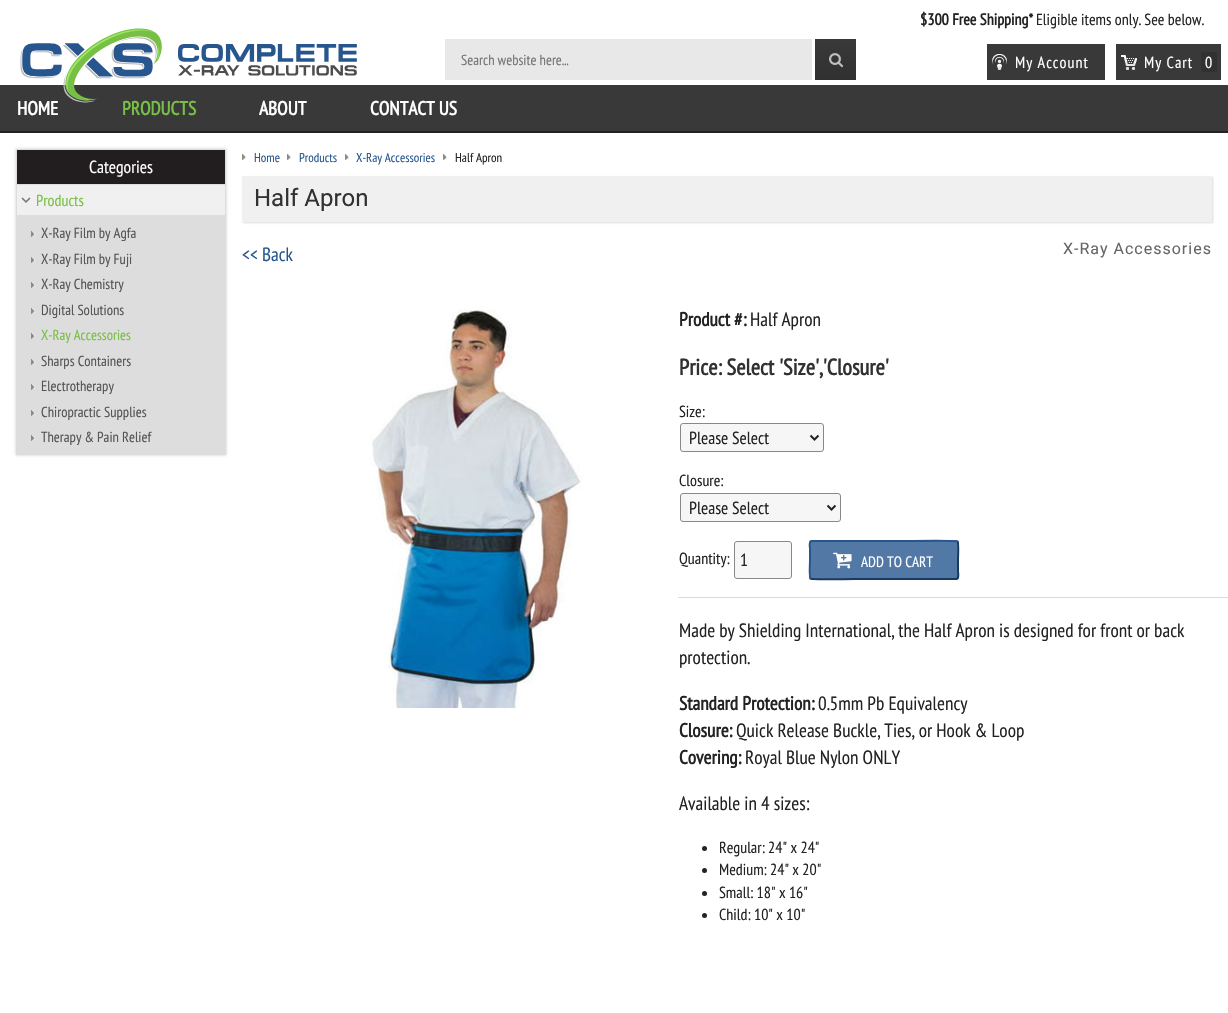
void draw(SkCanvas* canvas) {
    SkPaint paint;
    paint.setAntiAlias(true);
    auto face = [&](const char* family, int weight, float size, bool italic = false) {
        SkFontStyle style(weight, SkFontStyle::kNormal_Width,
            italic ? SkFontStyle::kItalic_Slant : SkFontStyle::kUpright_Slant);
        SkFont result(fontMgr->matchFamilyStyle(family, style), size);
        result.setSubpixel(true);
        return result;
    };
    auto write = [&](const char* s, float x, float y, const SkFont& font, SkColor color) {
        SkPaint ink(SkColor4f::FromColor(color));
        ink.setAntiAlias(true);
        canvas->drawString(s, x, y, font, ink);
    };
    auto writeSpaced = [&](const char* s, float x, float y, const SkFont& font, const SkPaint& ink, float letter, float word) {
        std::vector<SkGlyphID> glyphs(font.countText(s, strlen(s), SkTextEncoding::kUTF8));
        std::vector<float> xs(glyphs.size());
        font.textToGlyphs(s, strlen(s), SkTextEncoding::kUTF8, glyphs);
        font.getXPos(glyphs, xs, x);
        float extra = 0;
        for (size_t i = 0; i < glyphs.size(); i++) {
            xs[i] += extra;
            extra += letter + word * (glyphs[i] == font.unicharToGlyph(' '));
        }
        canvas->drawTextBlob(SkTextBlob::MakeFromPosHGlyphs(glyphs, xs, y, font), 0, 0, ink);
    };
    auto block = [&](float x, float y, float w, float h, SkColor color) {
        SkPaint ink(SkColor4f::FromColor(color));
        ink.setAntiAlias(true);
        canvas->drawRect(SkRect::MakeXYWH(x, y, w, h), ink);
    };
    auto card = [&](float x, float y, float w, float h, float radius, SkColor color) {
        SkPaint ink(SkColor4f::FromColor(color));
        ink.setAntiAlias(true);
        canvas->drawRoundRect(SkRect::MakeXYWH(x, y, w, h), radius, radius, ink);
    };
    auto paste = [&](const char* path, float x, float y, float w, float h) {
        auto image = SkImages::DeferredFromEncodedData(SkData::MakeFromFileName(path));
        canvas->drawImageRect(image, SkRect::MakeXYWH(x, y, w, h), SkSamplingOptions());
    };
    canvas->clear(SK_ColorWHITE);
    auto kFont1 = face("PT Sans Narrow", 700, 16);
    write("$300 Free Shipping*", 920, 25, kFont1, SkColorSetRGB(34, 34, 34));
    auto kFont2 = face("PT Sans Narrow", 400, 16);
    write("Eligible items only. See below.", 1036, 25, kFont2, SkColorSetRGB(34, 34, 34));
    block(0, 131, 1228, 2, SkColorSetRGB(34, 34, 34));
    block(0, 85, 1228, 46, SkColorSetRGB(57, 57, 57));
    paste("pic1.png", 20, 28, 337, 75);
    block(445, 39, 367, 41, SkColorSetRGB(232, 232, 232));
    auto kFont3 = face("PT Sans Narrow", 400, 14.5f);
    write("Search website here...", 461, 65, kFont3, SkColorSetRGB(117, 117, 117));
    {
        const SkColor colors[] = {SkColorSetRGB(57, 57, 57), SkColorSetRGB(48, 48, 48)};
        const float stops[] = {0, 1};
        const SkPoint ends[] = {{836, 39}, {836, 80}};
        paint.setShader(SkGradientShader::MakeLinear(ends, colors, stops, 2, SkTileMode::kClamp));
        paint.setAlpha(255);
    }
    canvas->drawRect(SkRect::MakeXYWH(815, 39, 41, 41), paint);
    paste("pic2.png", 829, 53, 15, 15);
    block(987, 44, 118, 36, SkColorSetRGB(57, 57, 57));
    paste("pic3.png", 992, 54, 15, 16);
    paint.setShader(nullptr);
    paint.setColor(SK_ColorWHITE);
    writeSpaced("My Account", 1015, 68, kFont2, paint, 1, 0);
    block(1116, 44, 105, 36, SkColorSetRGB(57, 57, 57));
    paste("pic4.png", 1121, 55, 16, 15);
    writeSpaced("My Cart", 1144, 68, kFont2, paint, 1, 0);
    card(1201, 52, 16, 20, 2, SkColorSetRGB(49, 49, 49));
    writeSpaced("0", 1205, 68, kFont2, paint, 1, 0);
    auto kFont4 = face("PT Sans Narrow", 700, 19.2f);
    write("HOME", 17, 115, kFont4, SK_ColorWHITE);
    write("PRODUCTS", 122, 115, kFont4, SkColorSetRGB(120, 191, 69));
    write("ABOUT", 259, 115, kFont4, SK_ColorWHITE);
    write("CONTACT US", 370, 115, kFont4, SK_ColorWHITE);
    paint.setColor(SkColorSetARGB(51, 0, 0, 0));
    paint.setMaskFilter(SkMaskFilter::MakeBlur(kNormal_SkBlurStyle, 1.5f));
    canvas->drawRect(SkRect::MakeXYWH(16, 149, 210, 306), paint);
    paint.setMaskFilter(nullptr);
    paint.setStyle(SkPaint::kStroke_Style);
    paint.setStrokeWidth(1);
    paint.setColor(SkColorSetRGB(221, 221, 221));
    canvas->drawRect(SkRect::MakeXYWH(16.5f, 149.5f, 209, 305), paint);
    block(17, 150, 208, 34, SkColorSetRGB(34, 30, 31));
    auto kFont5 = face("PT Sans Narrow", 400, 17.5f);
    write("Categories", 89, 173, kFont5, SK_ColorWHITE);
    block(17, 185, 208, 30, SkColorSetRGB(240, 240, 240));
    paste("pic5.png", 21, 197, 10, 6);
    block(17, 184, 208, 1, SkColorSetRGB(221, 221, 221));
    write("Products", 36, 206, kFont2, SkColorSetRGB(120, 191, 69));
    block(17, 215, 208, 239, SkColorSetRGB(221, 221, 221));
    paste("pic6.png", 31, 231, 4, 6);
    write("X-Ray Film by Agfa", 41, 238, kFont3, SkColorSetRGB(85, 85, 85));
    paste("pic6.png", 31, 257, 4, 6);
    write("X-Ray Film by Fuji", 41, 264, kFont3, SkColorSetRGB(85, 85, 85));
    paste("pic6.png", 31, 282, 4, 6);
    write("X-Ray Chemistry", 41, 289, kFont3, SkColorSetRGB(85, 85, 85));
    paste("pic6.png", 31, 308, 4, 6);
    write("Digital Solutions", 41, 315, kFont3, SkColorSetRGB(85, 85, 85));
    paste("pic6.png", 31, 333, 4, 6);
    write("X-Ray Accessories", 41, 340, kFont3, SkColorSetRGB(120, 191, 69));
    paste("pic6.png", 31, 359, 4, 6);
    write("Sharps Containers", 41, 366, kFont3, SkColorSetRGB(85, 85, 85));
    paste("pic6.png", 31, 384, 4, 6);
    write("Electrotherapy", 41, 391, kFont3, SkColorSetRGB(85, 85, 85));
    paste("pic6.png", 31, 410, 4, 6);
    write("Chiropractic Supplies", 41, 417, kFont3, SkColorSetRGB(85, 85, 85));
    paste("pic6.png", 31, 435, 4, 6);
    write("Therapy & Pain Relief", 41, 442, kFont3, SkColorSetRGB(85, 85, 85));
    paste("pic7.png", 242, 154, 4, 6);
    auto kFont6 = face("PT Sans Narrow", 400, 12.75f);
    write("Home", 254, 162, kFont6, SkColorSetRGB(39, 86, 143));
    paste("pic7.png", 287, 154, 4, 6);
    write("Products", 299, 162, kFont6, SkColorSetRGB(39, 86, 143));
    paste("pic7.png", 345, 154, 4, 6);
    write("X-Ray Accessories", 356, 162, kFont6, SkColorSetRGB(39, 86, 143));
    paste("pic7.png", 443, 154, 4, 6);
    write("Half Apron", 455, 162, kFont6, SkColorSetRGB(34, 34, 34));
    paint.setStyle(SkPaint::kFill_Style);
    paint.setColor(SkColorSetARGB(153, 195, 195, 195));
    paint.setMaskFilter(SkMaskFilter::MakeBlur(kNormal_SkBlurStyle, 1));
    canvas->drawRect(SkRect::MakeXYWH(243, 177, 970, 46), paint);
    paint.setMaskFilter(nullptr);
    block(242, 176, 970, 46, SkColorSetRGB(240, 240, 240));
    auto kFont7 = face("Roboto", 400, 24);
    write("Half Apron", 254, 206, kFont7, SkColorSetRGB(49, 49, 49));
    auto kFont8 = face("PT Sans Narrow", 400, 19.2f);
    write("<< Back", 242, 261, kFont8, SkColorSetRGB(39, 86, 143));
    auto kFont9 = face("Roboto", 400, 16);
    paint.setColor(SkColorSetRGB(102, 102, 102));
    writeSpaced("X-Ray Accessories", 1063, 254, kFont9, paint, 1, 0);
    paste("pic8.png", 370, 309, 213, 399);
    write("Product #:", 679, 326, kFont4, SkColorSetRGB(34, 34, 34));
    write("Half Apron", 750, 326, kFont8, SkColorSetRGB(34, 34, 34));
    auto kFont10 = face("PT Sans Narrow", 700, 22.5f);
    write("Price: Select 'Size','Closure'", 679, 375, kFont10, SkColorSetRGB(49, 49, 49));
    write("Size:", 679, 417, kFont2, SkColorSetRGB(34, 34, 34));
    paint.setColor(SkColorSetRGB(246, 246, 246));
    canvas->drawRoundRect(SkRect::MakeXYWH(680.5f, 423.5f, 143, 28), 2.5f, 2.5f, paint);
    paint.setStyle(SkPaint::kStroke_Style);
    paint.setColor(SkColorSetRGB(136, 136, 136));
    canvas->drawRoundRect(SkRect::MakeXYWH(680.5f, 423.5f, 143, 28), 2.5f, 2.5f, paint);
    paint.setStrokeWidth(2);
    paint.setColor(SkColorSetRGB(35, 35, 35));
    canvas->drawPath(SkPathBuilder().moveTo(810.5f, 435.5f).lineTo(814.5f, 439.5f).lineTo(818.5f, 435.5f).detach(), paint);
    write("Please Select", 689, 444, kFont5, SkColorSetRGB(34, 34, 34));
    write("Closure:", 679, 486, kFont2, SkColorSetRGB(34, 34, 34));
    paint.setStyle(SkPaint::kFill_Style);
    paint.setColor(SkColorSetRGB(246, 246, 246));
    canvas->drawRoundRect(SkRect::MakeXYWH(680.5f, 493.5f, 160, 28), 2.5f, 2.5f, paint);
    paint.setStyle(SkPaint::kStroke_Style);
    paint.setStrokeWidth(1);
    paint.setColor(SkColorSetRGB(136, 136, 136));
    canvas->drawRoundRect(SkRect::MakeXYWH(680.5f, 493.5f, 160, 28), 2.5f, 2.5f, paint);
    paint.setStrokeWidth(2);
    paint.setColor(SkColorSetRGB(35, 35, 35));
    canvas->drawPath(SkPathBuilder().moveTo(827.5f, 505.5f).lineTo(831.5f, 509.5f).lineTo(835.5f, 505.5f).detach(), paint);
    write("Please Select", 689, 514, kFont5, SkColorSetRGB(34, 34, 34));
    block(678, 597, 550, 1, SkColorSetRGB(218, 218, 218));
    write("Quantity:", 679, 564, kFont2, SkColorSetRGB(34, 34, 34));
    paint.setStyle(SkPaint::kFill_Style);
    paint.setColor(SkColorSetRGB(246, 246, 246));
    canvas->drawRoundRect(SkRect::MakeXYWH(734.5f, 541.5f, 57, 37), 2.5f, 2.5f, paint);
    paint.setStyle(SkPaint::kStroke_Style);
    paint.setStrokeWidth(1);
    paint.setColor(SkColorSetRGB(136, 136, 136));
    canvas->drawRoundRect(SkRect::MakeXYWH(734.5f, 541.5f, 57, 37), 2.5f, 2.5f, paint);
    write("1", 740, 566, kFont5, SkColorSetRGB(34, 34, 34));
    card(809, 540, 150, 40, 3, SkColorSetARGB(204, 39, 86, 143));
    paint.setStrokeWidth(2);
    paint.setColor(SkColorSetRGB(26, 57, 95));
    canvas->drawPath(SkPathBuilder().moveTo(957.5f, 541.5f).cubicTo(959, 543, 958, 557, 958, 560).lineTo(958, 571.5f).cubicTo(958, 572, 959.5f, 579, 956, 579).lineTo(860, 579).cubicTo(856.5f, 579, 812, 580, 810.5f, 578.5f).detach(), paint);
    paint.setColor(SkColorSetRGB(39, 86, 143));
    canvas->drawPath(SkPathBuilder().moveTo(810.5f, 578.5f).cubicTo(809, 577, 810, 563, 810, 560).lineTo(810, 548.5f).cubicTo(810, 548, 808.5f, 541, 812, 541).lineTo(908, 541).cubicTo(911.5f, 541, 956, 540, 957.5f, 541.5f).detach(), paint);
    paste("pic9.png", 833, 552, 19, 17);
    auto kFont11 = face("PT Sans Narrow", 400, 15);
    write("ADD TO CART", 861, 567, kFont11, SK_ColorWHITE);
    write("Made by Shielding International, the Half Apron is designed for front or back", 679, 637, kFont8, SkColorSetRGB(34, 34, 34));
    write("protection.", 679, 664, kFont8, SkColorSetRGB(34, 34, 34));
    write("Standard Protection:", 679, 710, kFont4, SkColorSetRGB(34, 34, 34));
    write("0.5mm Pb Equivalency", 818, 710, kFont8, SkColorSetRGB(34, 34, 34));
    write("Closure:", 679, 737, kFont4, SkColorSetRGB(34, 34, 34));
    write("Quick Release Buckle, Ties, or Hook & Loop", 736, 737, kFont8, SkColorSetRGB(34, 34, 34));
    write("Covering:", 679, 764, kFont4, SkColorSetRGB(34, 34, 34));
    write("Royal Blue Nylon ONLY", 745, 764, kFont8, SkColorSetRGB(34, 34, 34));
    write("Available in 4 sizes:", 679, 810, kFont8, SkColorSetRGB(34, 34, 34));
    paint.setStyle(SkPaint::kFill_Style);
    paint.setColor(SkColorSetRGB(35, 35, 35));
    canvas->drawCircle(704.5f, 848.5f, 2.5f, paint);
    write("Regular: 24\" x 24\"", 719, 853, kFont2, SkColorSetRGB(34, 34, 34));
    canvas->drawCircle(704.5f, 870.5f, 2.5f, paint);
    write("Medium: 24\" x 20\"", 719, 875, kFont2, SkColorSetRGB(34, 34, 34));
    canvas->drawCircle(704.5f, 893.5f, 2.5f, paint);
    write("Small: 18\" x 16\"", 719, 898, kFont2, SkColorSetRGB(34, 34, 34));
    canvas->drawCircle(704.5f, 915.5f, 2.5f, paint);
    write("Child: 10\" x 10\"", 719, 920, kFont2, SkColorSetRGB(34, 34, 34));
}
